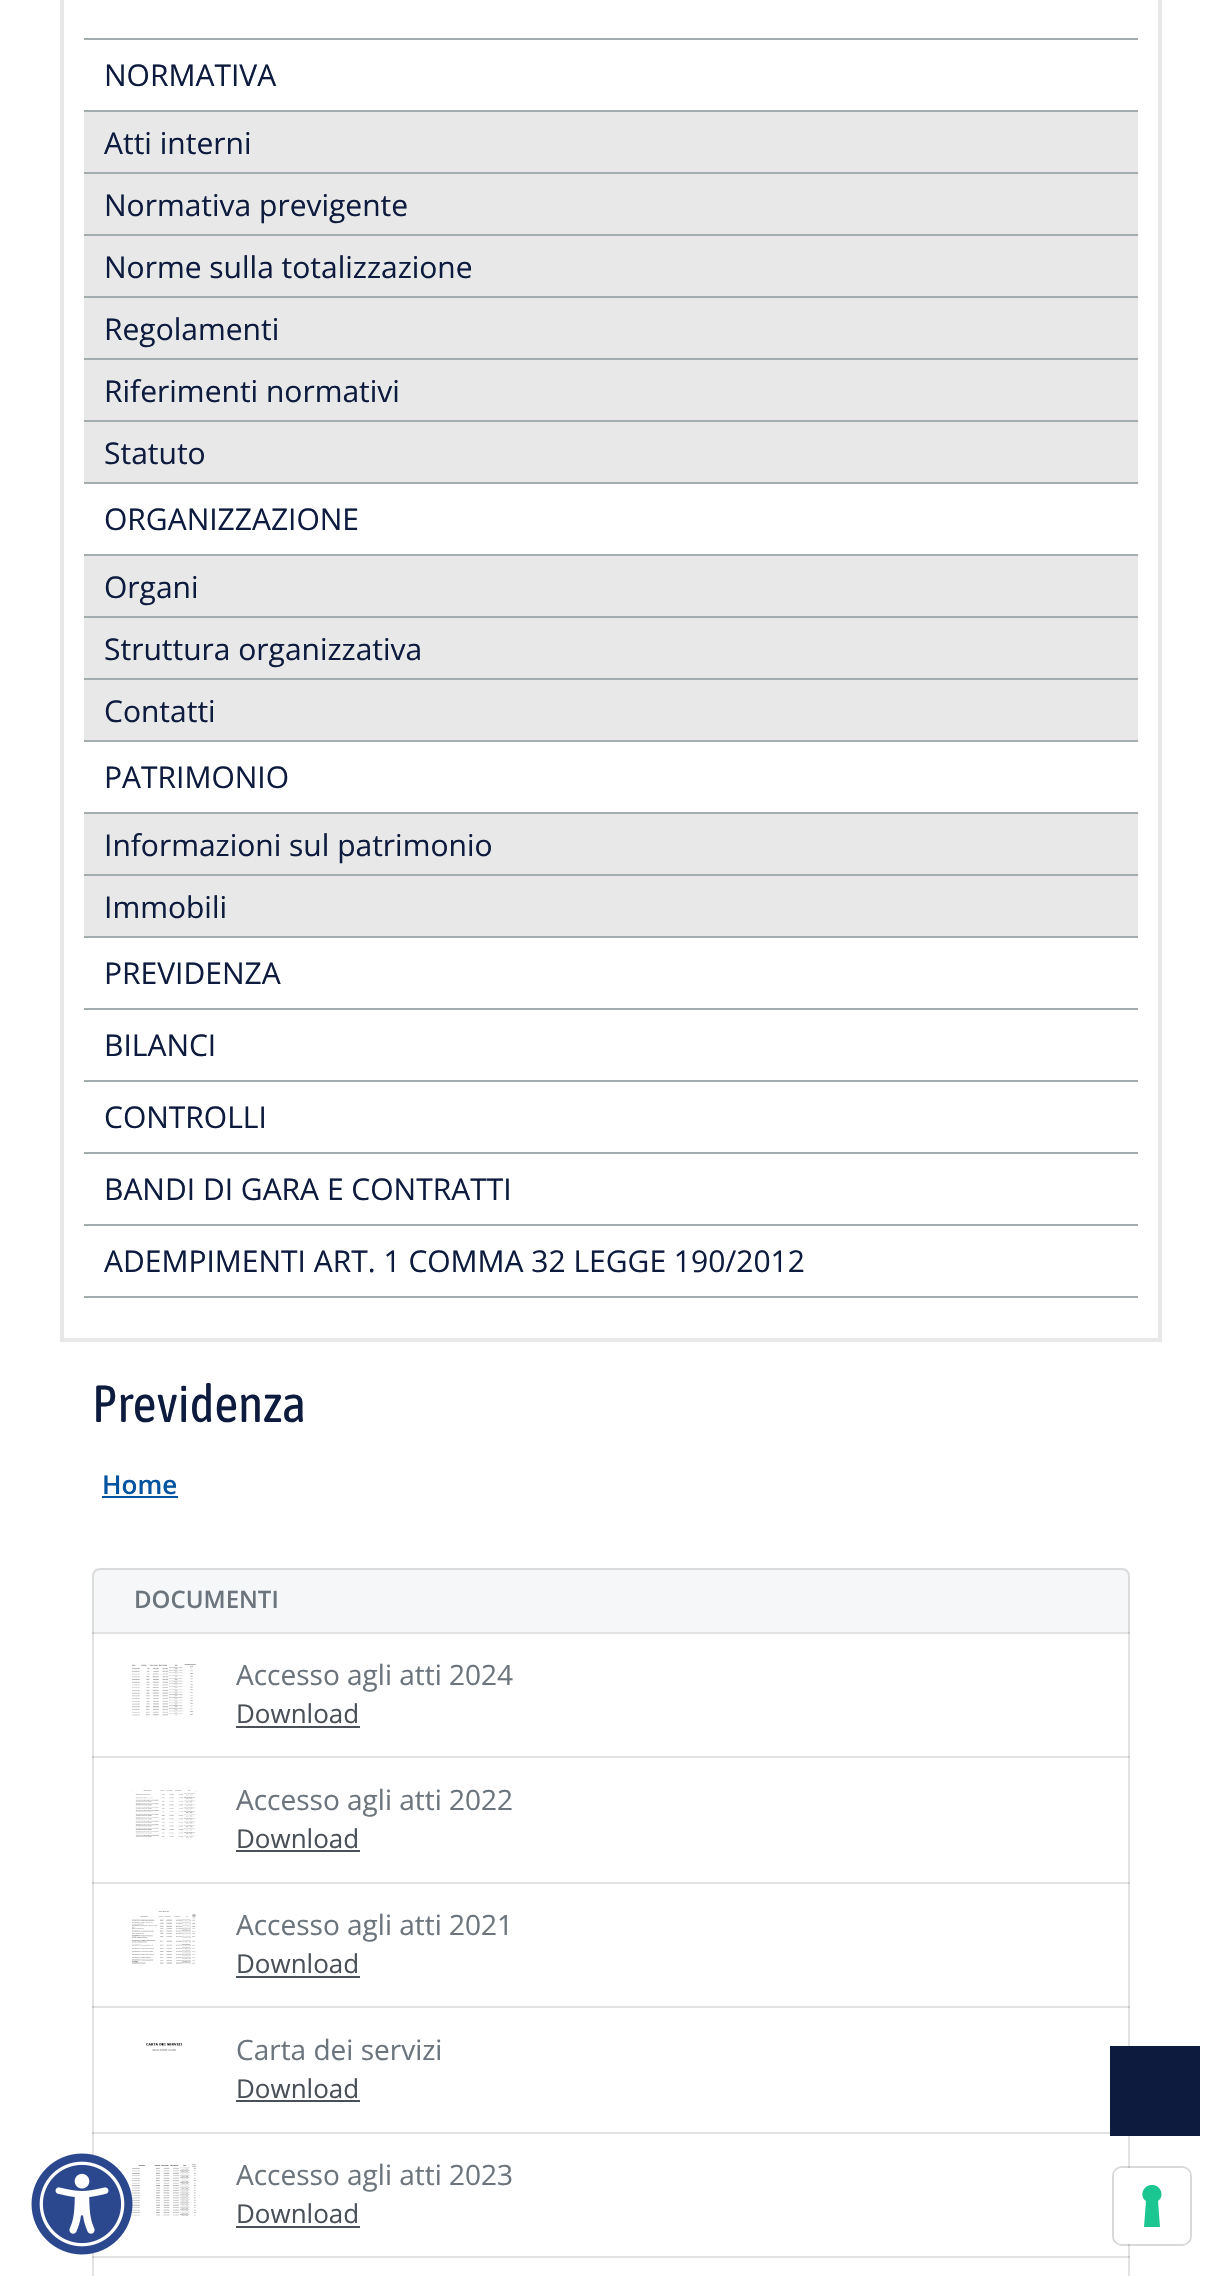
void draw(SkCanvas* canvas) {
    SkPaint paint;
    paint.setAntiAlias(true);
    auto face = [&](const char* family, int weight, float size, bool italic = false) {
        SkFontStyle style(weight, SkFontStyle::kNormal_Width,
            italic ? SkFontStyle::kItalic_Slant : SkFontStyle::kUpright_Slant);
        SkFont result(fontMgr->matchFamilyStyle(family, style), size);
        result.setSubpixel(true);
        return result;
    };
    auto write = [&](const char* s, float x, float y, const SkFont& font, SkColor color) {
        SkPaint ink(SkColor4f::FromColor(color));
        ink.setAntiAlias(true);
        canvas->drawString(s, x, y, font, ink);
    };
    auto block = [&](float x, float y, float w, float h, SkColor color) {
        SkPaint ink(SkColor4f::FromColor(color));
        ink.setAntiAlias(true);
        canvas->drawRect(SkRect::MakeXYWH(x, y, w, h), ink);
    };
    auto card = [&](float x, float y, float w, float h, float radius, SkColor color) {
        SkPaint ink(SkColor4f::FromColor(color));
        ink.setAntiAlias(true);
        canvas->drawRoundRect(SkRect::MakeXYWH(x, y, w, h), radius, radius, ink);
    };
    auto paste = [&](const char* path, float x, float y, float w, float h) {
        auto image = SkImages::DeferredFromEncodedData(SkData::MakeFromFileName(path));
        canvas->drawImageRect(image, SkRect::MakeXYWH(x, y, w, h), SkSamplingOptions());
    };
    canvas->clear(SK_ColorWHITE);
    paint.setStyle(SkPaint::kStroke_Style);
    paint.setStrokeWidth(4);
    paint.setColor(SkColorSetRGB(232, 232, 232));
    canvas->drawRect(SkRect::MakeXYWH(62, -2, 1098, 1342), paint);
    block(84, 38, 1054, 2, SkColorSetRGB(163, 173, 176));
    block(84, 482, 1054, 2, SkColorSetRGB(163, 173, 176));
    auto kFont1 = face("Open Sans", 400, 30);
    write("NORMATIVA", 104, 86, kFont1, SkColorSetRGB(13, 27, 62));
    block(84, 112, 1054, 370, SkColorSetRGB(232, 232, 232));
    block(84, 110, 1054, 2, SkColorSetRGB(163, 173, 176));
    block(84, 172, 1054, 2, SkColorSetRGB(163, 173, 176));
    write("Atti interni", 104, 154, kFont1, SkColorSetRGB(13, 27, 62));
    block(84, 234, 1054, 2, SkColorSetRGB(163, 173, 176));
    write("Normativa previgente", 104, 216, kFont1, SkColorSetRGB(13, 27, 62));
    block(84, 296, 1054, 2, SkColorSetRGB(163, 173, 176));
    write("Norme sulla totalizzazione", 104, 278, kFont1, SkColorSetRGB(13, 27, 62));
    block(84, 358, 1054, 2, SkColorSetRGB(163, 173, 176));
    write("Regolamenti", 104, 340, kFont1, SkColorSetRGB(13, 27, 62));
    block(84, 420, 1054, 2, SkColorSetRGB(163, 173, 176));
    write("Riferimenti normativi", 104, 402, kFont1, SkColorSetRGB(13, 27, 62));
    write("Statuto", 104, 464, kFont1, SkColorSetRGB(13, 27, 62));
    block(84, 740, 1054, 2, SkColorSetRGB(163, 173, 176));
    write("ORGANIZZAZIONE", 104, 530, kFont1, SkColorSetRGB(13, 27, 62));
    block(84, 556, 1054, 184, SkColorSetRGB(232, 232, 232));
    block(84, 554, 1054, 2, SkColorSetRGB(163, 173, 176));
    block(84, 616, 1054, 2, SkColorSetRGB(163, 173, 176));
    write("Organi", 104, 598, kFont1, SkColorSetRGB(13, 27, 62));
    block(84, 678, 1054, 2, SkColorSetRGB(163, 173, 176));
    write("Struttura organizzativa", 104, 660, kFont1, SkColorSetRGB(13, 27, 62));
    write("Contatti", 104, 722, kFont1, SkColorSetRGB(13, 27, 62));
    block(84, 936, 1054, 2, SkColorSetRGB(163, 173, 176));
    write("PATRIMONIO", 104, 788, kFont1, SkColorSetRGB(13, 27, 62));
    block(84, 814, 1054, 122, SkColorSetRGB(232, 232, 232));
    block(84, 812, 1054, 2, SkColorSetRGB(163, 173, 176));
    block(84, 874, 1054, 2, SkColorSetRGB(163, 173, 176));
    write("Informazioni sul patrimonio", 104, 856, kFont1, SkColorSetRGB(13, 27, 62));
    write("Immobili", 104, 918, kFont1, SkColorSetRGB(13, 27, 62));
    block(84, 1008, 1054, 2, SkColorSetRGB(163, 173, 176));
    write("PREVIDENZA", 104, 984, kFont1, SkColorSetRGB(13, 27, 62));
    block(84, 1080, 1054, 2, SkColorSetRGB(163, 173, 176));
    write("BILANCI", 104, 1056, kFont1, SkColorSetRGB(13, 27, 62));
    block(84, 1152, 1054, 2, SkColorSetRGB(163, 173, 176));
    write("CONTROLLI", 104, 1128, kFont1, SkColorSetRGB(13, 27, 62));
    block(84, 1224, 1054, 2, SkColorSetRGB(163, 173, 176));
    write("BANDI DI GARA E CONTRATTI", 104, 1200, kFont1, SkColorSetRGB(13, 27, 62));
    block(84, 1296, 1054, 2, SkColorSetRGB(163, 173, 176));
    write("ADEMPIMENTI ART. 1 COMMA 32 LEGGE 190/2012", 104, 1272, kFont1, SkColorSetRGB(13, 27, 62));
    auto kFont2 = face("Asap Condensed", 400, 52);
    write("Previdenza", 92, 1422, kFont2, SkColorSetRGB(13, 27, 62));
    auto kFont3 = face("Open Sans", 600, 26);
    write("Home", 102, 1494, kFont3, SkColorSetRGB(0, 83, 159));
    block(102, 1496, 76, 2, SkColorSetRGB(0, 83, 159));
    paint.setStyle(SkPaint::kFill_Style);
    paint.setColor(SkColorSetRGB(245, 247, 248));
    canvas->drawPath(SkPathBuilder().moveTo(100, 1568).lineTo(1122, 1568).cubicTo(1126.5f, 1568, 1130, 1571.5f, 1130, 1576).lineTo(1130, 1634).lineTo(92, 1634).lineTo(92, 1576).cubicTo(92, 1571.5f, 95.5f, 1568, 100, 1568).close().detach(), paint);
    paint.setStyle(SkPaint::kStroke_Style);
    paint.setStrokeWidth(2);
    paint.setColor(SkColorSetARGB(31, 24, 23, 23));
    canvas->drawPath(SkPathBuilder().moveTo(100, 1569).lineTo(1122, 1569).cubicTo(1126, 1569, 1129, 1572, 1129, 1576).lineTo(1129, 1633).lineTo(93, 1633).lineTo(93, 1576).cubicTo(93, 1572, 96, 1569, 100, 1569).close().detach(), paint);
    auto kFont4 = face("Open Sans", 600, 24);
    write("DOCUMENTI", 134, 1608, kFont4, SkColorSetRGB(108, 117, 125));
    block(92, 1632, 1038, 2, SkColorSetRGB(226, 226, 226));
    block(1128, 1632, 2, 126, SkColorSetARGB(31, 24, 23, 23));
    block(92, 1632, 2, 126, SkColorSetARGB(31, 24, 23, 23));
    paste("pic1.png", 132, 1664, 64, 52);
    auto kFont5 = face("Open Sans", 400, 28);
    write("Accesso agli atti 2024", 236, 1685, kFont5, SkColorSetRGB(108, 117, 125));
    auto kFont6 = face("Open Sans", 400, 26);
    write("Download", 236, 1723, kFont6, SkColorSetRGB(73, 80, 87));
    block(236, 1726, 124, 2, SkColorSetRGB(73, 80, 87));
    block(92, 1756, 1038, 2, SkColorSetRGB(226, 226, 226));
    block(1128, 1756, 2, 128, SkColorSetARGB(31, 24, 23, 23));
    block(92, 1756, 2, 128, SkColorSetARGB(31, 24, 23, 23));
    paste("pic2.png", 132, 1790, 64, 48);
    write("Accesso agli atti 2022", 236, 1810, kFont5, SkColorSetRGB(108, 117, 125));
    write("Download", 236, 1848, kFont6, SkColorSetRGB(73, 80, 87));
    block(236, 1850, 124, 2, SkColorSetRGB(73, 80, 87));
    block(92, 1882, 1038, 2, SkColorSetRGB(226, 226, 226));
    block(1128, 1882, 2, 126, SkColorSetARGB(31, 24, 23, 23));
    block(92, 1882, 2, 126, SkColorSetARGB(31, 24, 23, 23));
    paste("pic3.png", 132, 1910, 64, 54);
    write("Accesso agli atti 2021", 236, 1935, kFont5, SkColorSetRGB(108, 117, 125));
    write("Download", 236, 1973, kFont6, SkColorSetRGB(73, 80, 87));
    block(236, 1976, 124, 2, SkColorSetRGB(73, 80, 87));
    block(92, 2006, 1038, 2, SkColorSetRGB(226, 226, 226));
    block(1128, 2006, 2, 40, SkColorSetARGB(31, 24, 23, 23));
    block(92, 2006, 2, 128, SkColorSetARGB(31, 24, 23, 23));
    paste("pic4.png", 146, 2043, 36, 8);
    write("Carta dei servizi", 236, 2060, kFont5, SkColorSetRGB(108, 117, 125));
    write("Download", 236, 2098, kFont6, SkColorSetRGB(73, 80, 87));
    block(236, 2100, 124, 2, SkColorSetRGB(73, 80, 87));
    block(92, 2132, 1018, 2, SkColorSetRGB(226, 226, 226));
    block(1128, 2132, 2, 126, SkColorSetARGB(31, 24, 23, 23));
    block(92, 2132, 2, 126, SkColorSetARGB(31, 24, 23, 23));
    paste("pic5.png", 132, 2164, 64, 52);
    write("Accesso agli atti 2023", 236, 2185, kFont5, SkColorSetRGB(108, 117, 125));
    write("Download", 236, 2223, kFont6, SkColorSetRGB(73, 80, 87));
    block(236, 2226, 124, 2, SkColorSetRGB(73, 80, 87));
    block(92, 2256, 1038, 2, SkColorSetRGB(226, 226, 226));
    paint.setStyle(SkPaint::kFill_Style);
    canvas->drawPath(SkPathBuilder().moveTo(1120, 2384).lineTo(1122, 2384).cubicTo(1126, 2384, 1130, 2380, 1130, 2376).lineTo(1130, 2256).lineTo(1128, 2256).lineTo(1128, 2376).cubicTo(1128, 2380, 1124, 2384, 1120, 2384).close().detach(), paint);
    canvas->drawPath(SkPathBuilder().moveTo(92, 2256).lineTo(92, 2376).cubicTo(92, 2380, 96, 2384, 100, 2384).lineTo(102, 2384).cubicTo(98, 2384, 94, 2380, 94, 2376).lineTo(94, 2256).close().detach(), paint);
    block(1110, 2046, 90, 90, SkColorSetRGB(13, 27, 62));
    paint.setColor(SkColorSetRGB(255, 254, 254));
    canvas->drawOval(SkRect::MakeXYWH(32, 2162, 98, 92), paint);
    paste("pic6.png", 31, 2153, 102, 102);
    paint.setStyle(SkPaint::kStroke_Style);
    paint.setColor(SkColorSetARGB(38, 0, 0, 0));
    canvas->drawRoundRect(SkRect::MakeXYWH(1113, 2167, 78, 78), 9, 9, paint);
    card(1114, 2168, 76, 76, 8, SK_ColorWHITE);
    paint.setStyle(SkPaint::kFill_Style);
    paint.setColor(SkColorSetRGB(28, 198, 145));
    canvas->drawPath(SkPathBuilder(SkPathFillType::kEvenOdd).moveTo(1152, 2185).cubicTo(1161, 2185, 1165, 2196, 1158, 2201).lineTo(1160, 2227).lineTo(1144, 2227).lineTo(1146, 2201).cubicTo(1139, 2196, 1143, 2185, 1152, 2185).close().detach(), paint);
}
